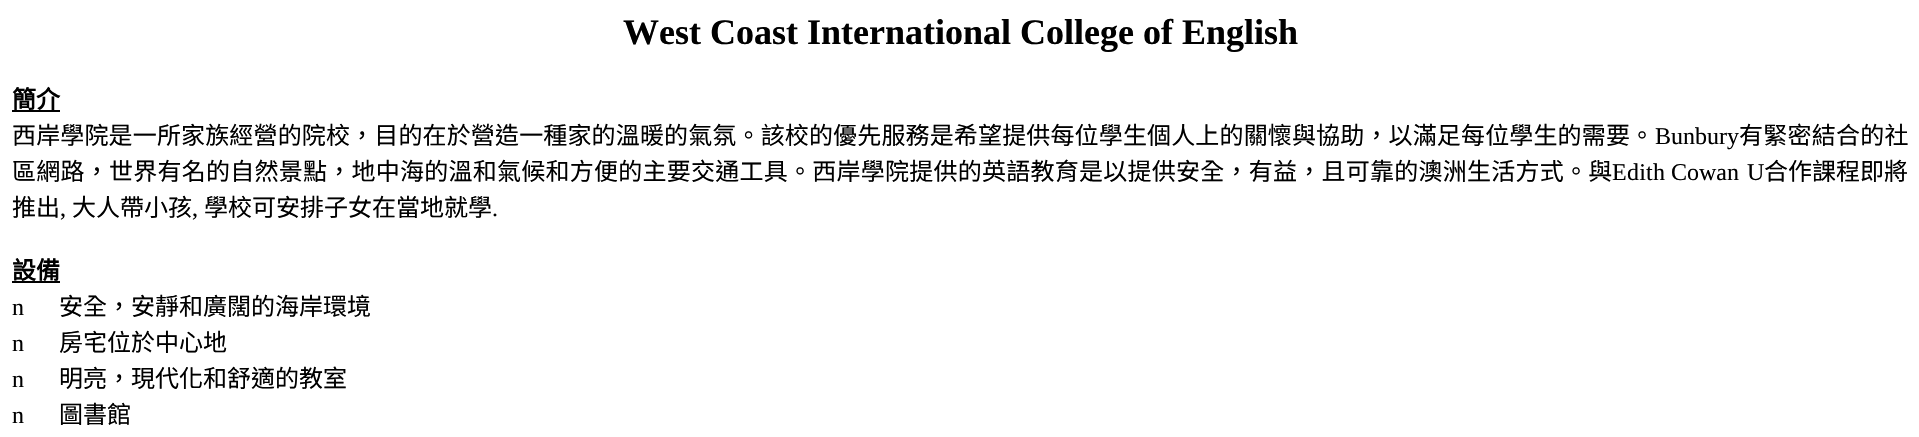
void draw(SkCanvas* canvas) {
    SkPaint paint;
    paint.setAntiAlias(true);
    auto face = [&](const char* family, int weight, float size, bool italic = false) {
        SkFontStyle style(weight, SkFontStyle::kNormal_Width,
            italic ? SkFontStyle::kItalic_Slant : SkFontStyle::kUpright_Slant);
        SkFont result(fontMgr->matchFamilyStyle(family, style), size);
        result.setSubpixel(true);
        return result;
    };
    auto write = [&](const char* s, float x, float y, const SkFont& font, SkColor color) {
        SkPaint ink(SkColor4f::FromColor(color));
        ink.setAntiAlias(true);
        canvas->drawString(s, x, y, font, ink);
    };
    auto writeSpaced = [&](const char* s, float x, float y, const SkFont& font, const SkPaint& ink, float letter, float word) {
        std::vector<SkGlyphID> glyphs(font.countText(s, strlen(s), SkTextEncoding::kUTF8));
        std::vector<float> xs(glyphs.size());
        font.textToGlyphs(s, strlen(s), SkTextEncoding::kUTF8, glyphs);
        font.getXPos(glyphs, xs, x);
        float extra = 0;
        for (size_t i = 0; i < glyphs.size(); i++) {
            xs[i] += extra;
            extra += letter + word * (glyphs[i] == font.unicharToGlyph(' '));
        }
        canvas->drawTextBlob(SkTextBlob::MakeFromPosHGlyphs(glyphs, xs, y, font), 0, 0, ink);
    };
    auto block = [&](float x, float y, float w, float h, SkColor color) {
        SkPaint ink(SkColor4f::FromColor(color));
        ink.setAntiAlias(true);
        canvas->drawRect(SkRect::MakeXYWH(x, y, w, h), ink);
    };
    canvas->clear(SK_ColorWHITE);
    auto kFont1 = face("Liberation Serif", 700, 36);
    write("West Coast International College of English", 623, 44, kFont1, SK_ColorBLACK);
    auto kFont2 = face("Noto Sans CJK TC", 700, 24);
    write("簡介", 12, 108, kFont2, SK_ColorBLACK);
    block(12, 110, 48, 2, SK_ColorBLACK);
    auto kFont3 = face("Noto Sans CJK TC", 400, 24);
    paint.setColor(SK_ColorBLACK);
    writeSpaced("西岸學院是一所家族經營的院校，目的在於營造一種家的溫暖的氣氛。該校的優先服務是希望提供每位學生個人上的關懷與協助，以滿足每位學生的需要。", 12, 144, kFont3, paint, 0.15f, 0);
    auto kFont4 = face("Liberation Serif", 400, 24);
    write("Bunbury", 1655, 144, kFont4, SK_ColorBLACK);
    writeSpaced("有緊密結合的社", 1739, 144, kFont3, paint, 0.25f, 0);
    writeSpaced("區網路，世界有名的自然景點，地中海的溫和氣候和方便的主要交通工具。西岸學院提供的英語教育是以提供安全，有益，且可靠的澳洲生活方式。與", 12, 180, kFont3, paint, 0.25f, 0);
    writeSpaced("Edith", 1612, 180, kFont4, paint, 0.25f, 0);
    writeSpaced("Cowan U", 1671, 180, kFont4, paint, 0, 2);
    write("合作課程即將", 1764, 180, kFont3, SK_ColorBLACK);
    write("推出", 12, 216, kFont3, SK_ColorBLACK);
    write(",", 60, 216, kFont4, SK_ColorBLACK);
    write("大人帶小孩", 72, 216, kFont3, SK_ColorBLACK);
    write(",", 192, 216, kFont4, SK_ColorBLACK);
    write("學校可安排子女在當地就學", 204, 216, kFont3, SK_ColorBLACK);
    write(".", 492, 216, kFont4, SK_ColorBLACK);
    write("設備", 12, 279, kFont2, SK_ColorBLACK);
    block(12, 281, 48, 2, SK_ColorBLACK);
    write("n", 12, 315, kFont4, SK_ColorBLACK);
    write("安全，安靜和廣闊的海岸環境", 59, 315, kFont3, SK_ColorBLACK);
    write("n", 12, 351, kFont4, SK_ColorBLACK);
    write("房宅位於中心地", 59, 351, kFont3, SK_ColorBLACK);
    write("n", 12, 387, kFont4, SK_ColorBLACK);
    write("明亮，現代化和舒適的教室", 59, 387, kFont3, SK_ColorBLACK);
    write("n", 12, 423, kFont4, SK_ColorBLACK);
    write("圖書館", 59, 423, kFont3, SK_ColorBLACK);
}
